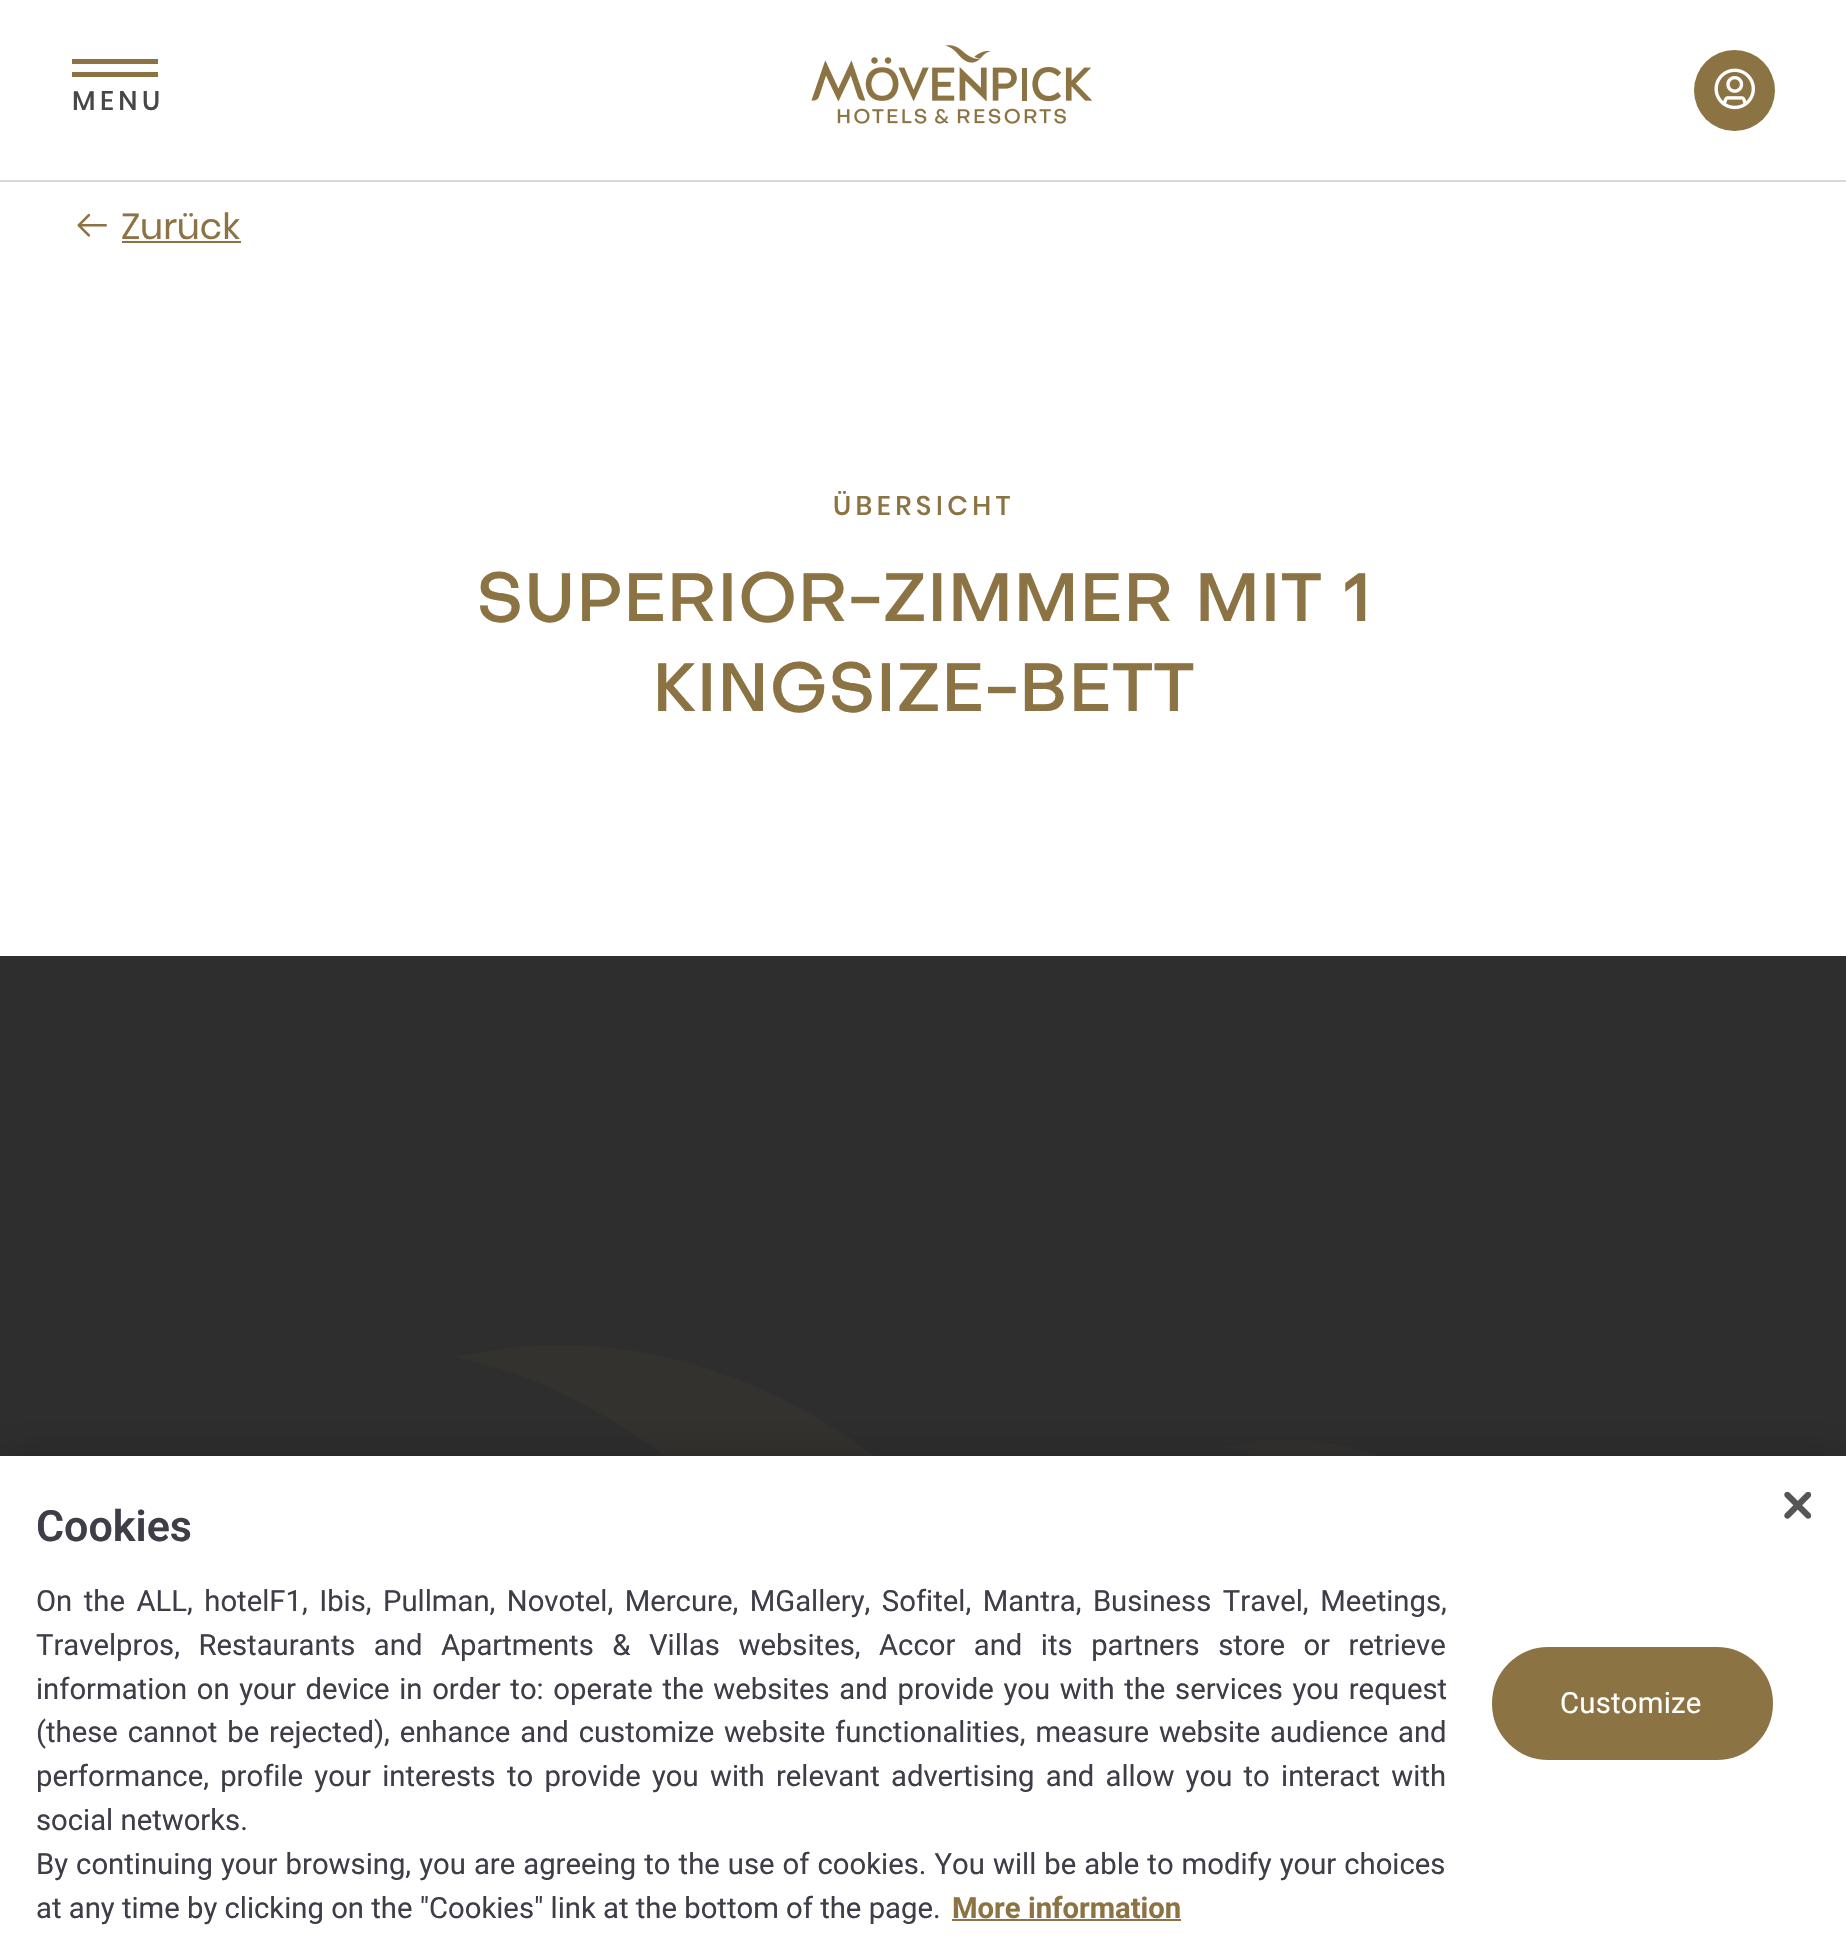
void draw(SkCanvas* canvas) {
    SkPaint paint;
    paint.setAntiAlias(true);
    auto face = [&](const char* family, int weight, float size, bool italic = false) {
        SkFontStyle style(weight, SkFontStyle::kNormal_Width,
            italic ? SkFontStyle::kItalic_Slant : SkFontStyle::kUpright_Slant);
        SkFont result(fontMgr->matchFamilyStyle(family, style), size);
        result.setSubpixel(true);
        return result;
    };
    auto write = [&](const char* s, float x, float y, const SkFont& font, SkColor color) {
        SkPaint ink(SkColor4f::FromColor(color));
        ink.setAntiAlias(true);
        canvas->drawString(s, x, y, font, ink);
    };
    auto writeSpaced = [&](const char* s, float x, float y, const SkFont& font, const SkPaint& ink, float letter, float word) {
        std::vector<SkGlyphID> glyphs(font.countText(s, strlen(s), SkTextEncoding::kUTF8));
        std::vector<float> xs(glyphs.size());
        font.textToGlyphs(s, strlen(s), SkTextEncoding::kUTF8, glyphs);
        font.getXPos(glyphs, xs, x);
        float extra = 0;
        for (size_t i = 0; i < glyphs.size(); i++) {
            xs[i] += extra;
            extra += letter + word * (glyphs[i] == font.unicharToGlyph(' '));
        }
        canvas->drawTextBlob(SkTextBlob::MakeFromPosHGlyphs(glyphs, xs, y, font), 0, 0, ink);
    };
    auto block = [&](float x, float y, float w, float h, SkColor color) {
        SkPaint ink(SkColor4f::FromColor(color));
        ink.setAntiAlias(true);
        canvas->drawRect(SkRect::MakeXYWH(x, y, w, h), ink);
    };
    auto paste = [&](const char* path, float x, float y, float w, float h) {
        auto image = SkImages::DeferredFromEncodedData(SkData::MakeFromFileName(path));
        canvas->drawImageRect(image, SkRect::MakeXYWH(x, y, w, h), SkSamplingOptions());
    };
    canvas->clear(SK_ColorWHITE);
    block(0, 180, 1846, 2, SkColorSetRGB(216, 216, 216));
    block(72, 59, 86, 5, SkColorSetRGB(140, 115, 67));
    block(72, 72, 86, 5, SkColorSetRGB(140, 115, 67));
    auto kFont1 = face("Poppins", 500, 27);
    paint.setColor(SkColorSetRGB(71, 71, 71));
    writeSpaced("MENU", 72, 110, kFont1, paint, 4.5f, 0);
    paste("pic1.png", 811, 45, 281, 79);
    paint.setColor(SkColorSetRGB(140, 115, 67));
    canvas->drawCircle(1734.5f, 90.5f, 40.5f, paint);
    paste("pic2.png", 1714, 68, 41, 42);
    paste("pic3.png", 77, 213, 30, 24);
    auto kFont2 = face("Poppins", 400, 36);
    write("Zurück", 121, 239, kFont2, SkColorSetRGB(140, 115, 67));
    block(122, 241, 119, 2, SkColorSetRGB(140, 115, 67));
    writeSpaced("ÜBERSICHT", 833, 515, kFont1, paint, 4.5f, 0);
    auto kFont3 = face("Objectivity", 500, 67.5f);
    write("SUPERIOR-ZIMMER MIT 1", 476, 621, kFont3, SkColorSetRGB(140, 115, 67));
    write("KINGSIZE-BETT", 652, 711, kFont3, SkColorSetRGB(140, 115, 67));
    block(0, 956, 1846, 500, SkColorSetRGB(46, 46, 46));
    paint.setColor(SkColorSetRGB(51, 49, 47));
    canvas->drawPath(SkPathBuilder(SkPathFillType::kEvenOdd).moveTo(1499, 1529).cubicTo(1566, 1589, 1622, 1626, 1672, 1645).cubicTo(1717, 1663, 1758, 1666, 1799, 1661).lineTo(1792, 1668).cubicTo(1740, 1718, 1667, 1741, 1597, 1716).lineTo(1551, 1694).cubicTo(1514, 1672, 1481, 1642, 1453, 1610).lineTo(1408, 1559).cubicTo(1357, 1506, 1298, 1464, 1225, 1447).cubicTo(1277, 1435, 1385, 1427, 1499, 1529).close().moveTo(1551, 1694).lineTo(1551, 1694).close().moveTo(1718, 1615).lineTo(1740, 1600).cubicTo(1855, 1523, 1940, 1530, 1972, 1545).cubicTo(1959, 1546, 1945, 1547, 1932, 1552).cubicTo(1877, 1570, 1838, 1618, 1800, 1660).cubicTo(1762, 1659, 1723, 1642, 1702, 1626).close().detach(), paint);
    paste("pic4.png", 459, 1346, 415, 110);
    paint.setColor(SkColorSetARGB(51, 0, 0, 0));
    paint.setMaskFilter(SkMaskFilter::MakeBlur(kNormal_SkBlurStyle, 20));
    canvas->drawRect(SkRect::MakeXYWH(0, 1456, 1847, 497), paint);
    paint.setMaskFilter(nullptr);
    block(0, 1456, 1846, 496, SK_ColorWHITE);
    auto kFont4 = face("Roboto", 600, 43);
    write("Cookies", 36, 1541, kFont4, SkColorSetRGB(62, 61, 72));
    auto kFont5 = face("Roboto", 400, 29.25f);
    paint.setColor(SkColorSetRGB(62, 61, 72));
    writeSpaced("On the ALL, hotelF1, Ibis, Pullman, Novotel, Mercure, MGallery, Sofitel, Mantra, Business Travel, Meetings,", 36, 1611, kFont5, paint, 0, 4.25f);
    writeSpaced("Travelpros, Restaurants and Apartments & Villas websites, Accor and its partners store or retrieve", 36, 1655, kFont5, paint, 0, 11.25f);
    writeSpaced("information on your device in order to: operate the websites and provide you with the services you request", 36, 1699, kFont5, paint, 0, 2.4f);
    writeSpaced("(these cannot be rejected), enhance and customize website functionalities, measure website audience and", 36, 1742, kFont5, paint, 0, 2.6f);
    writeSpaced("performance, profile your interests to provide you with relevant advertising and allow you to interact with", 36, 1786, kFont5, paint, 0, 4);
    write("social networks.", 36, 1830, kFont5, SkColorSetRGB(62, 61, 72));
    writeSpaced("By continuing your browsing, you are agreeing to the use of cookies. You will be able to modify your choices", 36, 1874, kFont5, paint, 0, 0.8f);
    write("at any time by clicking on the \"Cookies\" link at the bottom of the page.", 36, 1918, kFont5, SkColorSetRGB(62, 61, 72));
    auto kFont6 = face("Roboto", 700, 29.25f);
    write("More information", 952, 1918, kFont6, SkColorSetRGB(140, 115, 67));
    block(952, 1919, 229, 2, SkColorSetRGB(140, 115, 67));
    paint.setColor(SkColorSetRGB(140, 115, 67));
    canvas->drawRoundRect(SkRect::MakeXYWH(1493, 1648, 279, 111), 55.5f, 55.5f, paint);
    paint.setStyle(SkPaint::kStroke_Style);
    paint.setStrokeWidth(2);
    canvas->drawRoundRect(SkRect::MakeXYWH(1493, 1648, 279, 111), 55.5f, 55.5f, paint);
    paint.setStyle(SkPaint::kFill_Style);
    paint.setColor(SK_ColorWHITE);
    writeSpaced("Customize", 1560, 1713, kFont5, paint, 0.25f, 0);
    paste("pic5.png", 1784, 1492, 27, 27);
}
